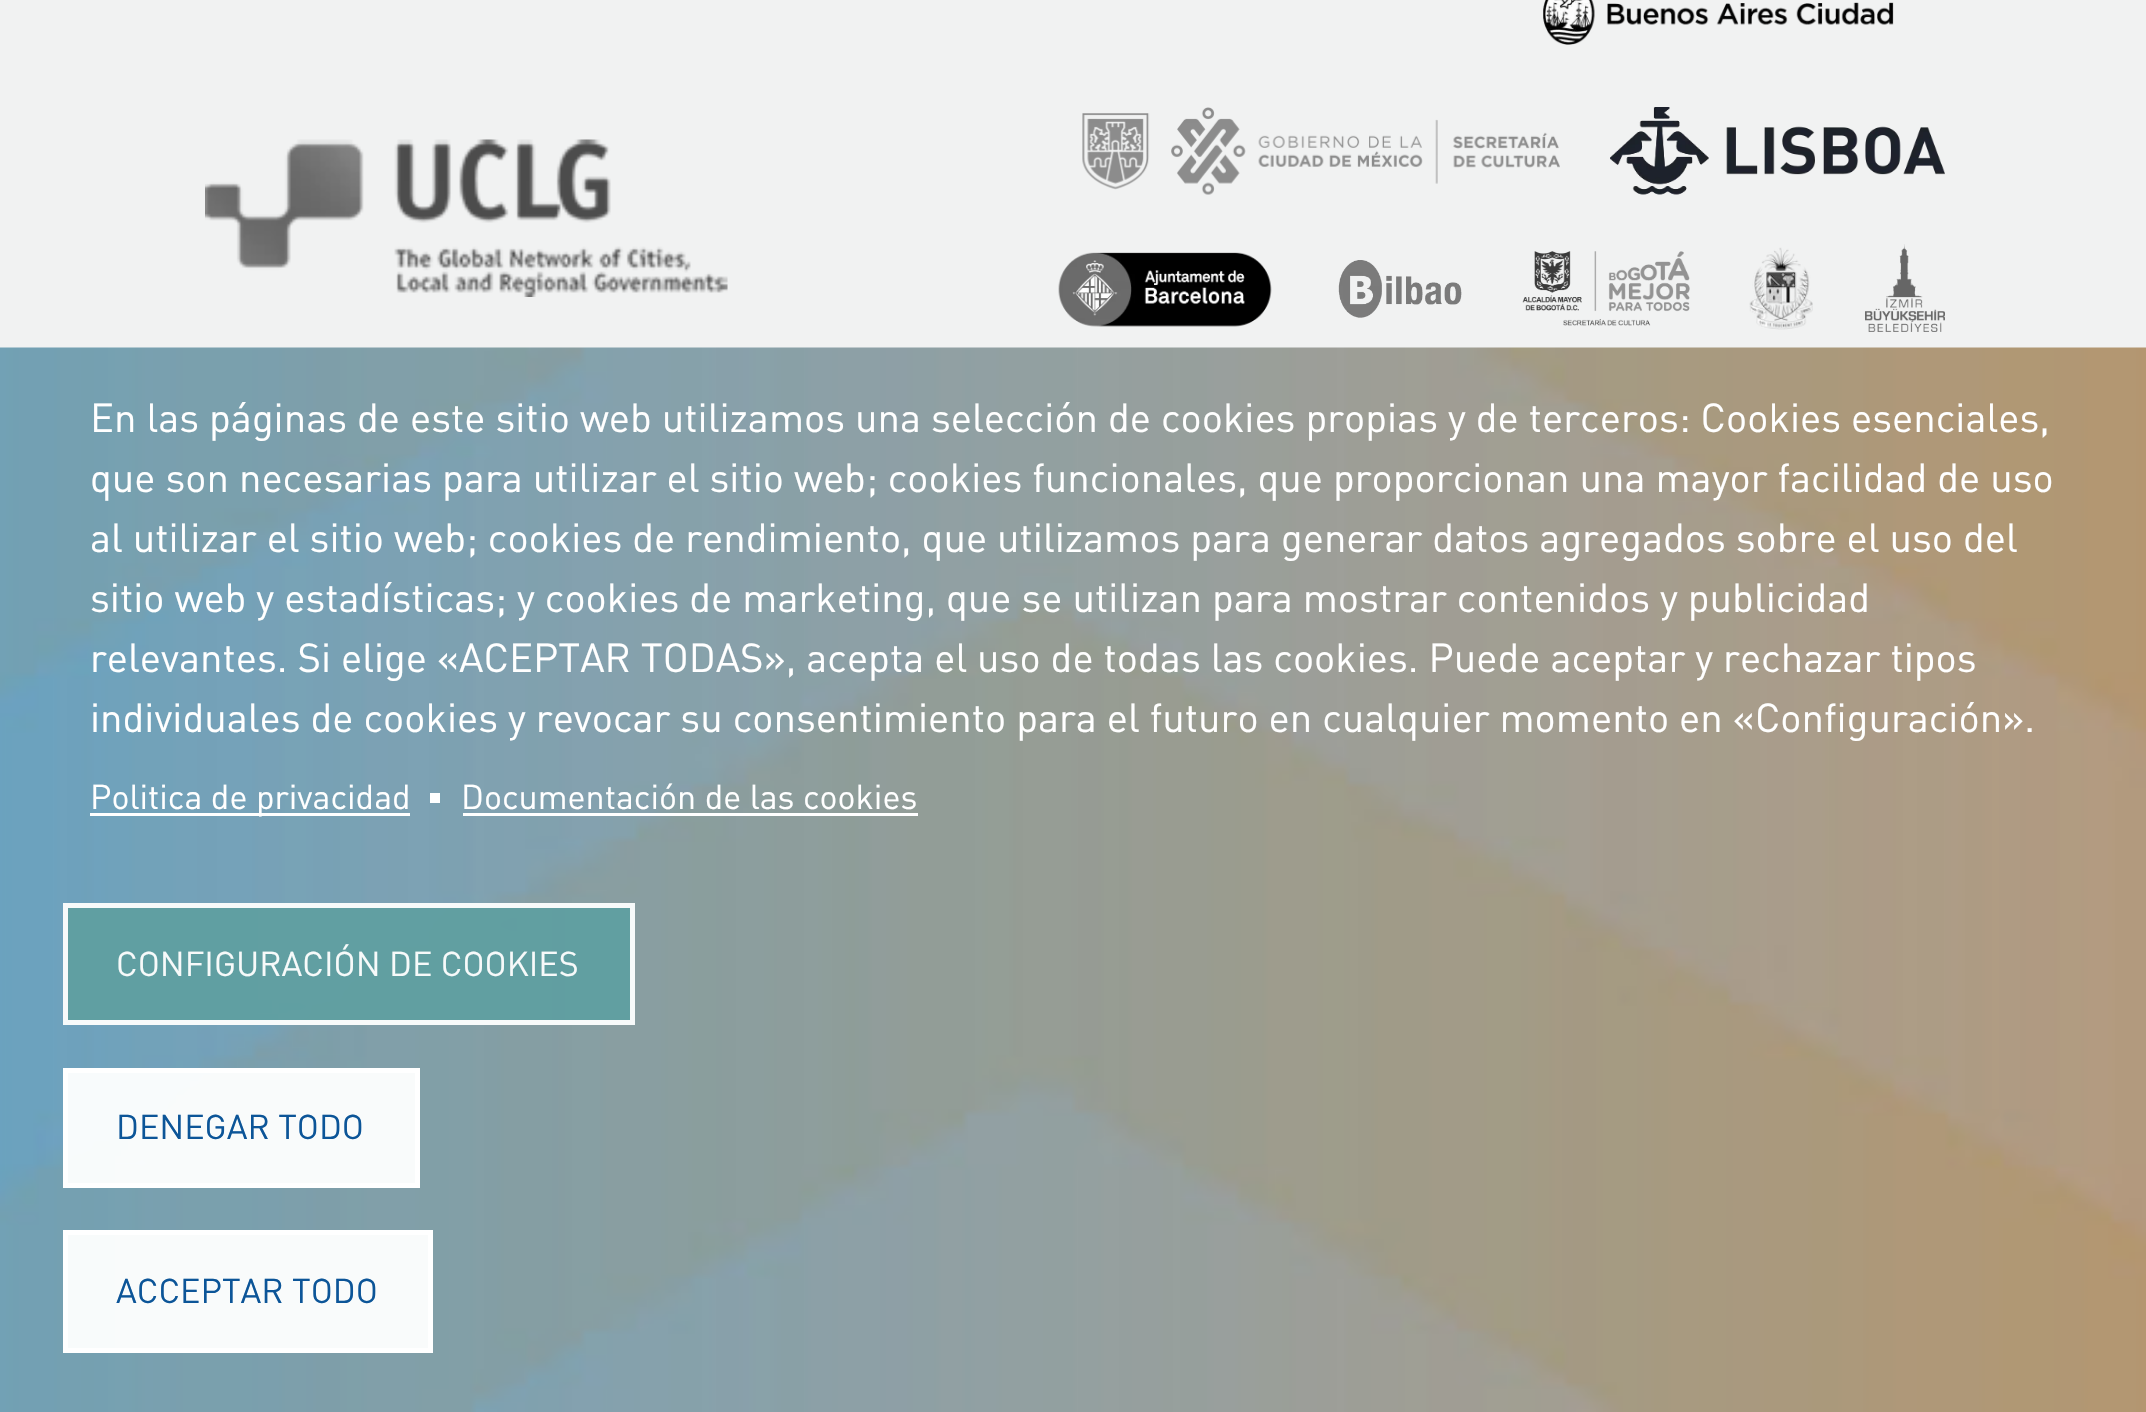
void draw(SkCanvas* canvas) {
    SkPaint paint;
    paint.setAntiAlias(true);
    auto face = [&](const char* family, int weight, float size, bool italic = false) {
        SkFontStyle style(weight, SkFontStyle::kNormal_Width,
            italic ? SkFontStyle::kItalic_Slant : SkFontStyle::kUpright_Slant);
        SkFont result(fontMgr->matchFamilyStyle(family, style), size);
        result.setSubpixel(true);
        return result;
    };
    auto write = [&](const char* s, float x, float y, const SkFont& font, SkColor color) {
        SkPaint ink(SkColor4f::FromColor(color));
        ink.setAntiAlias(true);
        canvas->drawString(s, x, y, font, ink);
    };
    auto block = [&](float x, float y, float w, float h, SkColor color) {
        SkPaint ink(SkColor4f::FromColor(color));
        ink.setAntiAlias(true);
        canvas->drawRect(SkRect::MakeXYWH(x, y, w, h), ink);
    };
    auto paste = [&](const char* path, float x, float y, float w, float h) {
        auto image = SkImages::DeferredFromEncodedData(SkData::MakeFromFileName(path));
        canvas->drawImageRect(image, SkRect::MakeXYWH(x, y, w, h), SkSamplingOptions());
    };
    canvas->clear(SkColorSetRGB(241, 242, 242));
    paste("pic1.png", 205, 139, 523, 158);
    paste("pic2.png", 1543, 0, 351, 45);
    paste("pic3.png", 1082, 107, 478, 88);
    paste("pic4.png", 1610, 107, 335, 88);
    paste("pic5.png", 1058, 252, 214, 75);
    paste("pic6.png", 1338, 260, 124, 58);
    paste("pic7.png", 1522, 251, 168, 75);
    paste("pic8.png", 1749, 247, 64, 83);
    paste("pic9.png", 1865, 244, 80, 88);
    paste("pic10.png", 0, 347, 2146, 1065);
    auto kFont1 = face("DIN", 400, 40);
    write("En las páginas de este sitio web utilizamos una selección de cookies propias y de terceros: Cookies esenciales,", 90, 432, kFont1, SK_ColorWHITE);
    write("que son necesarias para utilizar el sitio web; cookies funcionales, que proporcionan una mayor facilidad de uso", 90, 492, kFont1, SK_ColorWHITE);
    write("al utilizar el sitio web; cookies de rendimiento, que utilizamos para generar datos agregados sobre el uso del", 90, 552, kFont1, SK_ColorWHITE);
    write("sitio web y estadísticas; y cookies de marketing, que se utilizan para mostrar contenidos y publicidad", 90, 612, kFont1, SK_ColorWHITE);
    write("relevantes. Si elige «ACEPTAR TODAS», acepta el uso de todas las cookies. Puede aceptar y rechazar tipos", 90, 672, kFont1, SK_ColorWHITE);
    write("individuales de cookies y revocar su consentimiento para el futuro en cualquier momento en «Configuración».", 90, 732, kFont1, SK_ColorWHITE);
    block(90, 813, 320, 3, SK_ColorWHITE);
    auto kFont2 = face("DIN", 400, 34);
    write("Politica de privacidad", 90, 809, kFont2, SK_ColorWHITE);
    block(430, 793, 10, 10, SK_ColorWHITE);
    write("Documentación de las cookies", 461, 809, kFont2, SK_ColorWHITE);
    block(463, 813, 455, 3, SK_ColorWHITE);
    paint.setColor(SkColorSetARGB(242, 95, 158, 160));
    canvas->drawRect(SkRect::MakeXYWH(65.5f, 905.5f, 567, 117), paint);
    paint.setStyle(SkPaint::kStroke_Style);
    paint.setStrokeWidth(5);
    paint.setColor(SkColorSetRGB(247, 250, 250));
    canvas->drawRect(SkRect::MakeXYWH(65.5f, 905.5f, 567, 117), paint);
    write("CONFIGURACIÓN DE COOKIES", 116, 976, kFont2, SkColorSetRGB(247, 250, 250));
    paint.setStyle(SkPaint::kFill_Style);
    paint.setColor(SkColorSetARGB(242, 255, 255, 255));
    canvas->drawRect(SkRect::MakeXYWH(65.5f, 1070.5f, 352, 115), paint);
    paint.setStyle(SkPaint::kStroke_Style);
    paint.setColor(SK_ColorWHITE);
    canvas->drawRect(SkRect::MakeXYWH(65.5f, 1070.5f, 352, 115), paint);
    write("DENEGAR TODO", 116, 1139, kFont2, SkColorSetRGB(12, 85, 152));
    paint.setStyle(SkPaint::kFill_Style);
    paint.setColor(SkColorSetARGB(242, 255, 255, 255));
    canvas->drawRect(SkRect::MakeXYWH(65.5f, 1232.5f, 365, 118), paint);
    paint.setStyle(SkPaint::kStroke_Style);
    paint.setColor(SK_ColorWHITE);
    canvas->drawRect(SkRect::MakeXYWH(65.5f, 1232.5f, 365, 118), paint);
    write("ACCEPTAR TODO", 116, 1303, kFont2, SkColorSetRGB(12, 85, 152));
}
